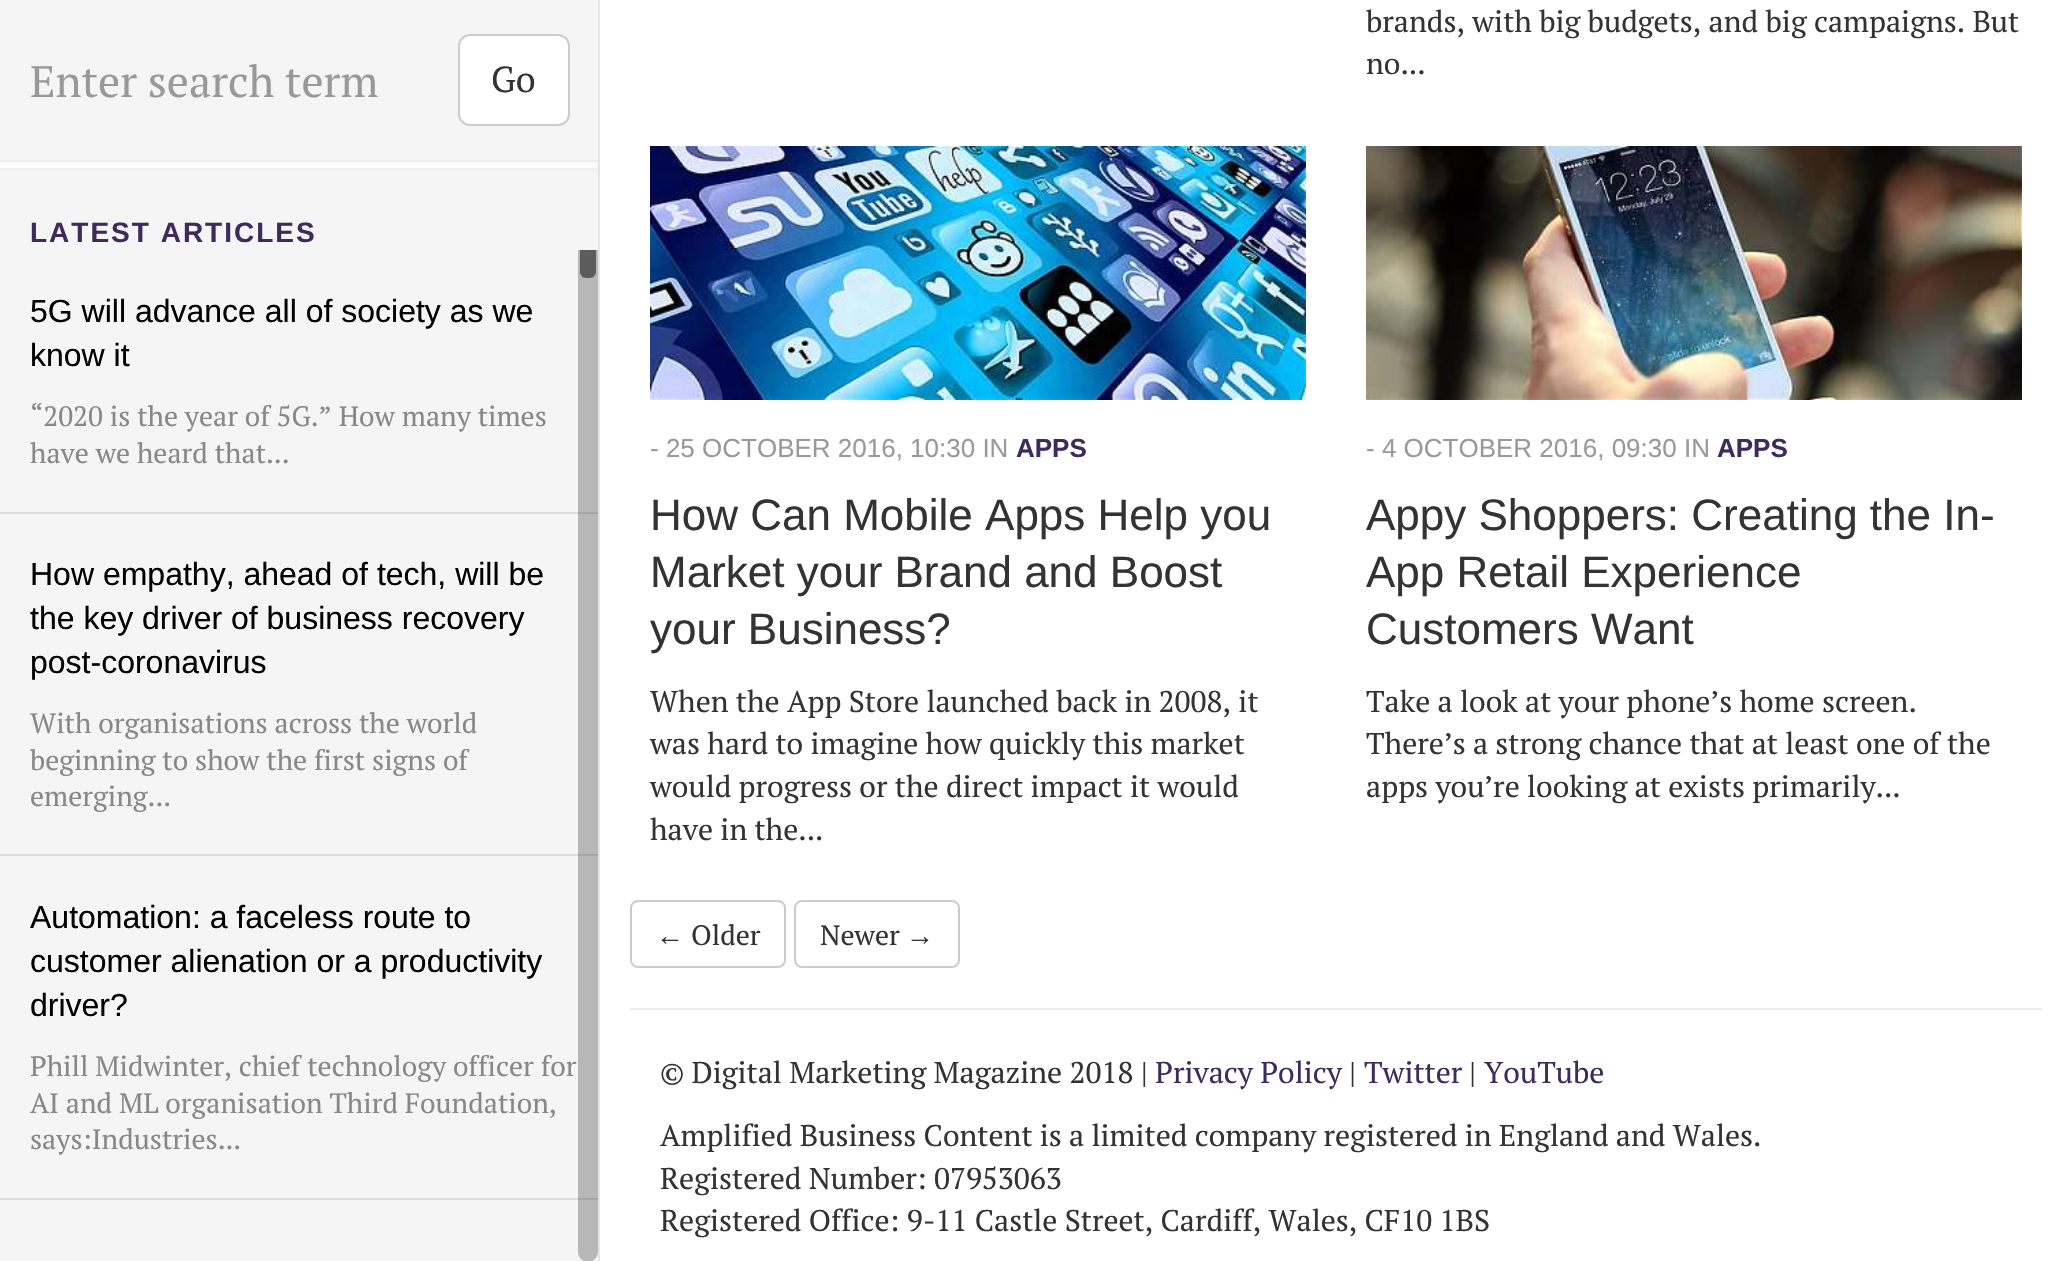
void draw(SkCanvas* canvas) {
    SkPaint paint;
    paint.setAntiAlias(true);
    auto face = [&](const char* family, int weight, float size, bool italic = false) {
        SkFontStyle style(weight, SkFontStyle::kNormal_Width,
            italic ? SkFontStyle::kItalic_Slant : SkFontStyle::kUpright_Slant);
        SkFont result(fontMgr->matchFamilyStyle(family, style), size);
        result.setSubpixel(true);
        return result;
    };
    auto write = [&](const char* s, float x, float y, const SkFont& font, SkColor color) {
        SkPaint ink(SkColor4f::FromColor(color));
        ink.setAntiAlias(true);
        canvas->drawString(s, x, y, font, ink);
    };
    auto writeSpaced = [&](const char* s, float x, float y, const SkFont& font, const SkPaint& ink, float letter, float word) {
        std::vector<SkGlyphID> glyphs(font.countText(s, strlen(s), SkTextEncoding::kUTF8));
        std::vector<float> xs(glyphs.size());
        font.textToGlyphs(s, strlen(s), SkTextEncoding::kUTF8, glyphs);
        font.getXPos(glyphs, xs, x);
        float extra = 0;
        for (size_t i = 0; i < glyphs.size(); i++) {
            xs[i] += extra;
            extra += letter + word * (glyphs[i] == font.unicharToGlyph(' '));
        }
        canvas->drawTextBlob(SkTextBlob::MakeFromPosHGlyphs(glyphs, xs, y, font), 0, 0, ink);
    };
    auto block = [&](float x, float y, float w, float h, SkColor color) {
        SkPaint ink(SkColor4f::FromColor(color));
        ink.setAntiAlias(true);
        canvas->drawRect(SkRect::MakeXYWH(x, y, w, h), ink);
    };
    auto card = [&](float x, float y, float w, float h, float radius, SkColor color) {
        SkPaint ink(SkColor4f::FromColor(color));
        ink.setAntiAlias(true);
        canvas->drawRoundRect(SkRect::MakeXYWH(x, y, w, h), radius, radius, ink);
    };
    auto paste = [&](const char* path, float x, float y, float w, float h) {
        auto image = SkImages::DeferredFromEncodedData(SkData::MakeFromFileName(path));
        canvas->drawImageRect(image, SkRect::MakeXYWH(x, y, w, h), SkSamplingOptions());
    };
    canvas->clear(SK_ColorWHITE);
    block(0, 250, 598, 1011, SkColorSetRGB(245, 245, 245));
    block(598, 0, 2, 1261, SkColorSetRGB(229, 229, 229));
    block(0, 512, 598, 2, SkColorSetRGB(222, 222, 222));
    block(0, 854, 598, 2, SkColorSetRGB(222, 222, 222));
    block(0, 1198, 598, 2, SkColorSetRGB(222, 222, 222));
    card(578, 0, 20, 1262, 10, SkColorSetARGB(64, 0, 0, 0));
    card(580, 0, 16, 278, 6, SkColorSetARGB(128, 2, 2, 2));
    block(0, 168, 598, 2, SkColorSetRGB(240, 240, 240));
    block(0, 162, 598, 6, SkColorSetRGB(251, 251, 251));
    block(0, 0, 598, 160, SkColorSetRGB(245, 245, 245));
    block(0, 160, 598, 2, SkColorSetRGB(238, 238, 238));
    auto kFont1 = face("PT Serif", 400, 44);
    write("Enter search term", 30, 97, kFont1, SkColorSetRGB(153, 153, 153));
    paint.setColor(SK_ColorWHITE);
    canvas->drawRoundRect(SkRect::MakeXYWH(459, 35, 110, 90), 11, 11, paint);
    paint.setStyle(SkPaint::kStroke_Style);
    paint.setStrokeWidth(2);
    paint.setColor(SkColorSetRGB(204, 204, 204));
    canvas->drawRoundRect(SkRect::MakeXYWH(459, 35, 110, 90), 11, 11, paint);
    auto kFont2 = face("PT Serif", 400, 36);
    write("Go", 491, 92, kFont2, SkColorSetRGB(51, 51, 51));
    block(0, 170, 598, 80, SkColorSetRGB(245, 245, 245));
    auto kFont3 = face("Liberation Sans", 700, 28);
    paint.setStyle(SkPaint::kFill_Style);
    paint.setColor(SkColorSetRGB(62, 42, 92));
    writeSpaced("LATEST ARTICLES", 30, 242, kFont3, paint, 2, 0);
    auto kFont4 = face("Liberation Sans", 400, 32);
    write("5G will advance all of society as we", 30, 322, kFont4, SK_ColorBLACK);
    write("know it", 30, 366, kFont4, SK_ColorBLACK);
    auto kFont5 = face("PT Serif", 400, 28);
    write("“2020 is the year of 5G.” How many times", 30, 426, kFont5, SkColorSetRGB(136, 136, 136));
    write("have we heard that...", 30, 463, kFont5, SkColorSetRGB(136, 136, 136));
    write("How empathy, ahead of tech, will be", 30, 585, kFont4, SK_ColorBLACK);
    write("the key driver of business recovery", 30, 629, kFont4, SK_ColorBLACK);
    write("post-coronavirus", 30, 673, kFont4, SK_ColorBLACK);
    write("With organisations across the world", 30, 733, kFont5, SkColorSetRGB(136, 136, 136));
    write("beginning to show the first signs of", 30, 770, kFont5, SkColorSetRGB(136, 136, 136));
    write("emerging...", 30, 806, kFont5, SkColorSetRGB(136, 136, 136));
    write("Automation: a faceless route to", 30, 928, kFont4, SK_ColorBLACK);
    write("customer alienation or a productivity", 30, 972, kFont4, SK_ColorBLACK);
    write("driver?", 30, 1016, kFont4, SK_ColorBLACK);
    write("Phill Midwinter, chief technology officer for", 30, 1076, kFont5, SkColorSetRGB(136, 136, 136));
    write("AI and ML organisation Third Foundation,", 30, 1113, kFont5, SkColorSetRGB(136, 136, 136));
    write("says:Industries...", 30, 1149, kFont5, SkColorSetRGB(136, 136, 136));
    auto kFont6 = face("PT Serif", 400, 30);
    write("brands, with big budgets, and big campaigns. But", 1366, 32, kFont6, SkColorSetRGB(51, 51, 51));
    write("no...", 1366, 74, kFont6, SkColorSetRGB(51, 51, 51));
    paste("pic1.png", 650, 146, 656, 254);
    auto kFont7 = face("Liberation Sans", 400, 26);
    write("- 25 OCTOBER 2016, 10:30 IN", 650, 457, kFont7, SkColorSetRGB(153, 153, 153));
    auto kFont8 = face("Liberation Sans", 700, 26);
    write("APPS", 1016, 457, kFont8, SkColorSetRGB(62, 42, 92));
    auto kFont9 = face("Liberation Sans", 400, 44);
    write("How Can Mobile Apps Help you", 650, 530, kFont9, SkColorSetRGB(51, 51, 51));
    write("Market your Brand and Boost", 650, 587, kFont9, SkColorSetRGB(51, 51, 51));
    write("your Business?", 650, 644, kFont9, SkColorSetRGB(51, 51, 51));
    write("When the App Store launched back in 2008, it", 650, 712, kFont6, SkColorSetRGB(51, 51, 51));
    write("was hard to imagine how quickly this market", 650, 754, kFont6, SkColorSetRGB(51, 51, 51));
    write("would progress or the direct impact it would", 650, 797, kFont6, SkColorSetRGB(51, 51, 51));
    write("have in the...", 650, 840, kFont6, SkColorSetRGB(51, 51, 51));
    paste("pic2.png", 1366, 146, 656, 254);
    write("- 4 OCTOBER 2016, 09:30 IN", 1366, 457, kFont7, SkColorSetRGB(153, 153, 153));
    write("APPS", 1717, 457, kFont8, SkColorSetRGB(62, 42, 92));
    write("Appy Shoppers: Creating the In-", 1366, 530, kFont9, SkColorSetRGB(51, 51, 51));
    write("App Retail Experience", 1366, 587, kFont9, SkColorSetRGB(51, 51, 51));
    write("Customers Want", 1366, 644, kFont9, SkColorSetRGB(51, 51, 51));
    write("Take a look at your phone’s home screen.", 1366, 712, kFont6, SkColorSetRGB(51, 51, 51));
    write("There’s a strong chance that at least one of the", 1366, 754, kFont6, SkColorSetRGB(51, 51, 51));
    write("apps you’re looking at exists primarily...", 1366, 797, kFont6, SkColorSetRGB(51, 51, 51));
    paint.setStyle(SkPaint::kStroke_Style);
    paint.setColor(SkColorSetRGB(204, 204, 204));
    canvas->drawRoundRect(SkRect::MakeXYWH(631, 901, 154, 66), 7, 7, paint);
    auto kFont10 = face("Liberation Serif", 400, 28);
    write("←", 656, 945, kFont10, SkColorSetRGB(51, 51, 51));
    write("Older", 691, 945, kFont5, SkColorSetRGB(51, 51, 51));
    canvas->drawRoundRect(SkRect::MakeXYWH(795, 901, 164, 66), 7, 7, paint);
    write("Newer", 820, 945, kFont5, SkColorSetRGB(51, 51, 51));
    write("→", 906, 945, kFont10, SkColorSetRGB(51, 51, 51));
    block(630, 1008, 1412, 2, SkColorSetRGB(238, 238, 238));
    write("© Digital Marketing Magazine 2018 |", 660, 1083, kFont6, SkColorSetRGB(51, 51, 51));
    write("Privacy Policy", 1155, 1083, kFont6, SkColorSetRGB(62, 42, 92));
    write("|", 1349, 1083, kFont6, SkColorSetRGB(51, 51, 51));
    write("Twitter", 1364, 1083, kFont6, SkColorSetRGB(62, 42, 92));
    write("|", 1469, 1083, kFont6, SkColorSetRGB(51, 51, 51));
    write("YouTube", 1484, 1083, kFont6, SkColorSetRGB(62, 42, 92));
    write("Amplified Business Content is a limited company registered in England and Wales.", 660, 1146, kFont6, SkColorSetRGB(51, 51, 51));
    write("Registered Number: 07953063", 660, 1189, kFont6, SkColorSetRGB(51, 51, 51));
    write("Registered Office: 9-11 Castle Street, Cardiff, Wales, CF10 1BS", 660, 1231, kFont6, SkColorSetRGB(51, 51, 51));
}
